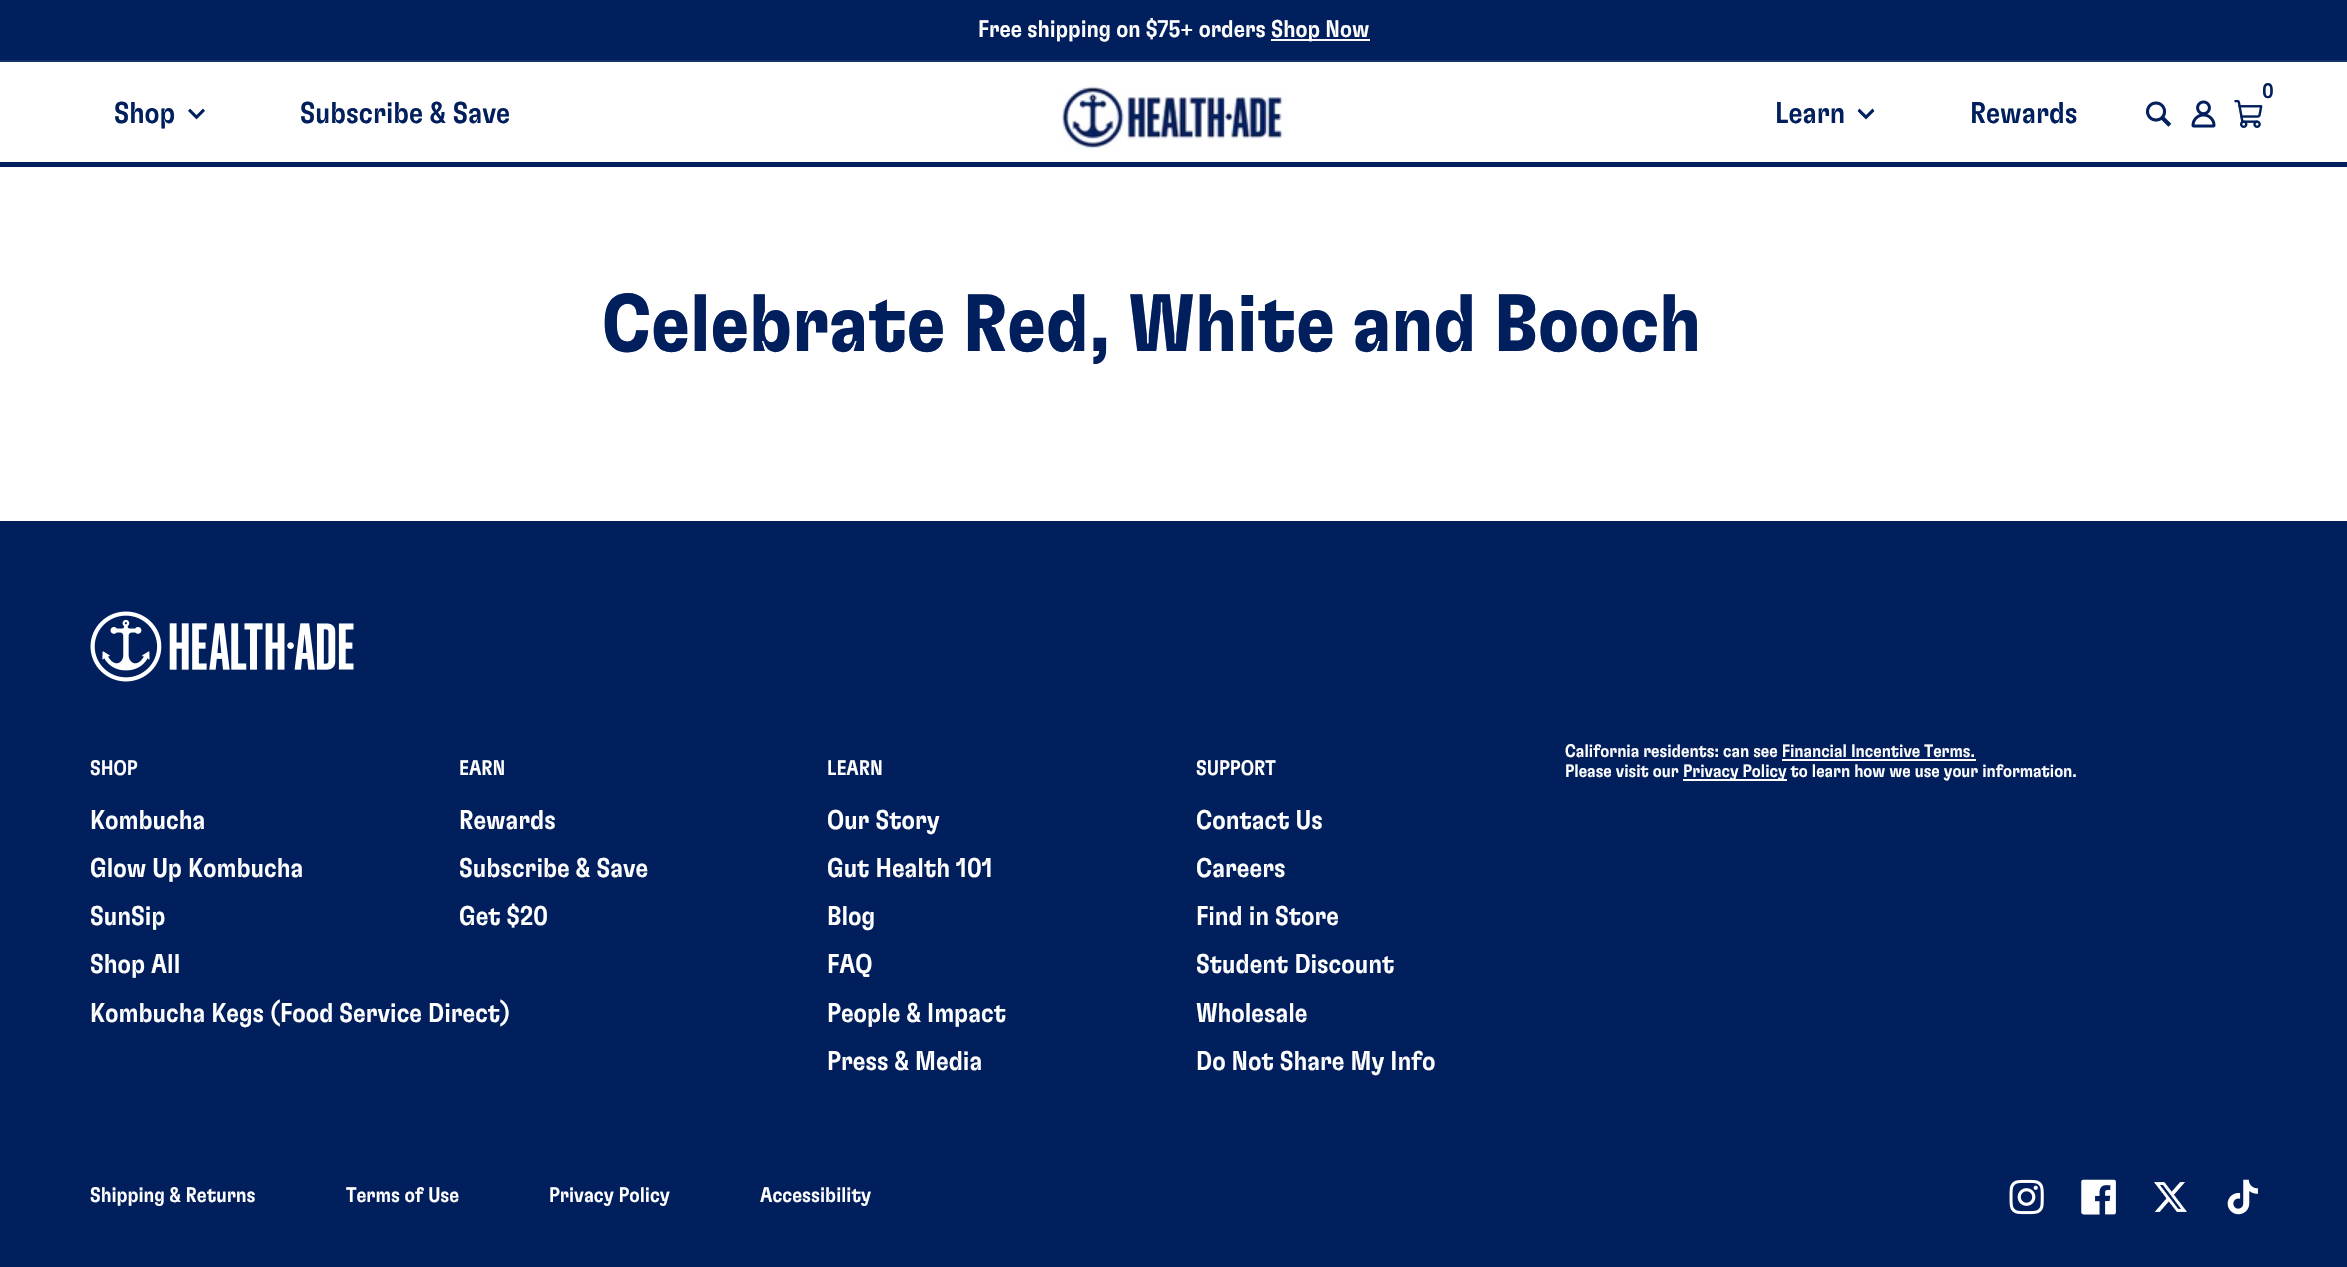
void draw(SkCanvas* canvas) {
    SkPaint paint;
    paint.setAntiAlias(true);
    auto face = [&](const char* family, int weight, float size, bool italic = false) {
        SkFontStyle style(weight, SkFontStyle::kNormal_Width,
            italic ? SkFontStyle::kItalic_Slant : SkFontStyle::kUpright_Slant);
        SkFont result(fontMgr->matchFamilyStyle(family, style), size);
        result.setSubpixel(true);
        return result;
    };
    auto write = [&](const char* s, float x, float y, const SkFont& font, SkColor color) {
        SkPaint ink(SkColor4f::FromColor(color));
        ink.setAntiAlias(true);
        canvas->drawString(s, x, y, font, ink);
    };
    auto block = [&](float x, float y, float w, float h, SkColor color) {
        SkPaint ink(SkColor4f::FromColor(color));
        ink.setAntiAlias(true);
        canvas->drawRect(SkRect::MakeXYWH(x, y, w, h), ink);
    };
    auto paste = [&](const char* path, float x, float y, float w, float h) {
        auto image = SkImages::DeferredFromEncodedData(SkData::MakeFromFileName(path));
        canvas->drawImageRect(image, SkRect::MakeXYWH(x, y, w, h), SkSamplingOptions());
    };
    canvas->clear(SK_ColorWHITE);
    block(0, 0, 2347, 60, SkColorSetRGB(0, 31, 92));
    block(0, 60, 2347, 2, SkColorSetRGB(20, 49, 105));
    auto kFont1 = face("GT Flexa", 500, 24);
    write("Free shipping on $75+ orders", 978, 37, kFont1, SK_ColorWHITE);
    block(1271, 39, 99, 2, SkColorSetRGB(252, 252, 252));
    write("Shop Now", 1271, 37, kFont1, SK_ColorWHITE);
    auto kFont2 = face("GT Flexa", 500, 30);
    write("Shop", 114, 123, kFont2, SkColorSetRGB(0, 31, 92));
    paste("pic1.png", 188, 108, 17, 12);
    write("Subscribe & Save", 300, 123, kFont2, SkColorSetRGB(0, 31, 92));
    paste("pic2.png", 1062, 84, 225, 66);
    auto kFont3 = face("GT Flexa", 500, 21);
    write("0", 2262, 98, kFont3, SkColorSetRGB(0, 31, 92));
    paste("pic3.png", 2234, 99, 29, 29);
    paste("pic4.png", 2145, 101, 27, 26);
    paste("pic5.png", 2191, 100, 25, 28);
    write("Learn", 1775, 123, kFont2, SkColorSetRGB(0, 31, 92));
    paint.setColor(SkColorSetRGB(0, 31, 92));
    canvas->drawPath(SkPathBuilder().moveTo(1866, 119.5f).lineTo(1857.5f, 111).lineTo(1859.5f, 108.5f).lineTo(1866, 115).lineTo(1872.5f, 108.5f).lineTo(1874.5f, 111).close().detach(), paint);
    write("Rewards", 1970, 123, kFont2, SkColorSetRGB(0, 31, 92));
    block(0, 162, 2347, 5, SkColorSetRGB(0, 31, 92));
    auto kFont4 = face("GT Flexa", 700, 81);
    write("Celebrate Red, White and Booch", 602, 351, kFont4, SkColorSetRGB(0, 31, 92));
    block(0, 521, 2347, 746, SkColorSetRGB(0, 31, 92));
    paste("pic6.png", 90, 611, 264, 71);
    write("SHOP", 90, 775, kFont3, SK_ColorWHITE);
    auto kFont5 = face("GT Flexa", 500, 27);
    write("Kombucha", 90, 829, kFont5, SK_ColorWHITE);
    write("Glow Up Kombucha", 90, 877, kFont5, SK_ColorWHITE);
    write("SunSip", 90, 925, kFont5, SK_ColorWHITE);
    write("Shop All", 90, 973, kFont5, SK_ColorWHITE);
    write("Kombucha Kegs (Food Service Direct)", 90, 1022, kFont5, SK_ColorWHITE);
    write("EARN", 459, 775, kFont3, SK_ColorWHITE);
    write("Rewards", 459, 829, kFont5, SK_ColorWHITE);
    write("Subscribe & Save", 459, 877, kFont5, SK_ColorWHITE);
    write("Get $20", 459, 925, kFont5, SK_ColorWHITE);
    write("LEARN", 827, 775, kFont3, SK_ColorWHITE);
    write("Our Story", 827, 829, kFont5, SK_ColorWHITE);
    write("Gut Health 101", 827, 877, kFont5, SK_ColorWHITE);
    write("Blog", 827, 925, kFont5, SK_ColorWHITE);
    write("FAQ", 827, 973, kFont5, SK_ColorWHITE);
    write("People & Impact", 827, 1022, kFont5, SK_ColorWHITE);
    write("Press & Media", 827, 1070, kFont5, SK_ColorWHITE);
    write("SUPPORT", 1196, 775, kFont3, SK_ColorWHITE);
    write("Contact Us", 1196, 829, kFont5, SK_ColorWHITE);
    write("Careers", 1196, 877, kFont5, SK_ColorWHITE);
    write("Find in Store", 1196, 925, kFont5, SK_ColorWHITE);
    write("Student Discount", 1196, 973, kFont5, SK_ColorWHITE);
    write("Wholesale", 1196, 1022, kFont5, SK_ColorWHITE);
    write("Do Not Share My Info", 1196, 1070, kFont5, SK_ColorWHITE);
    auto kFont6 = face("GT Flexa", 500, 18);
    write("California residents: can see Financial Incentive Terms.", 1565, 757, kFont6, SK_ColorWHITE);
    block(1782, 759, 194, 2, SK_ColorWHITE);
    write("Please visit our", 1565, 777, kFont6, SK_ColorWHITE);
    block(1683, 779, 104, 2, SK_ColorWHITE);
    write("Privacy Policy to learn how we use your information.", 1683, 777, kFont6, SK_ColorWHITE);
    write("Shipping & Returns", 90, 1202, kFont3, SK_ColorWHITE);
    write("Terms of Use", 346, 1202, kFont3, SK_ColorWHITE);
    write("Privacy Policy", 549, 1202, kFont3, SK_ColorWHITE);
    write("Accessibility", 760, 1202, kFont3, SK_ColorWHITE);
    paste("pic7.png", 2009, 1179, 35, 36);
    paste("pic8.png", 2081, 1179, 35, 36);
    paste("pic9.png", 2154, 1182, 33, 30);
    paste("pic10.png", 2227, 1179, 31, 36);
}
